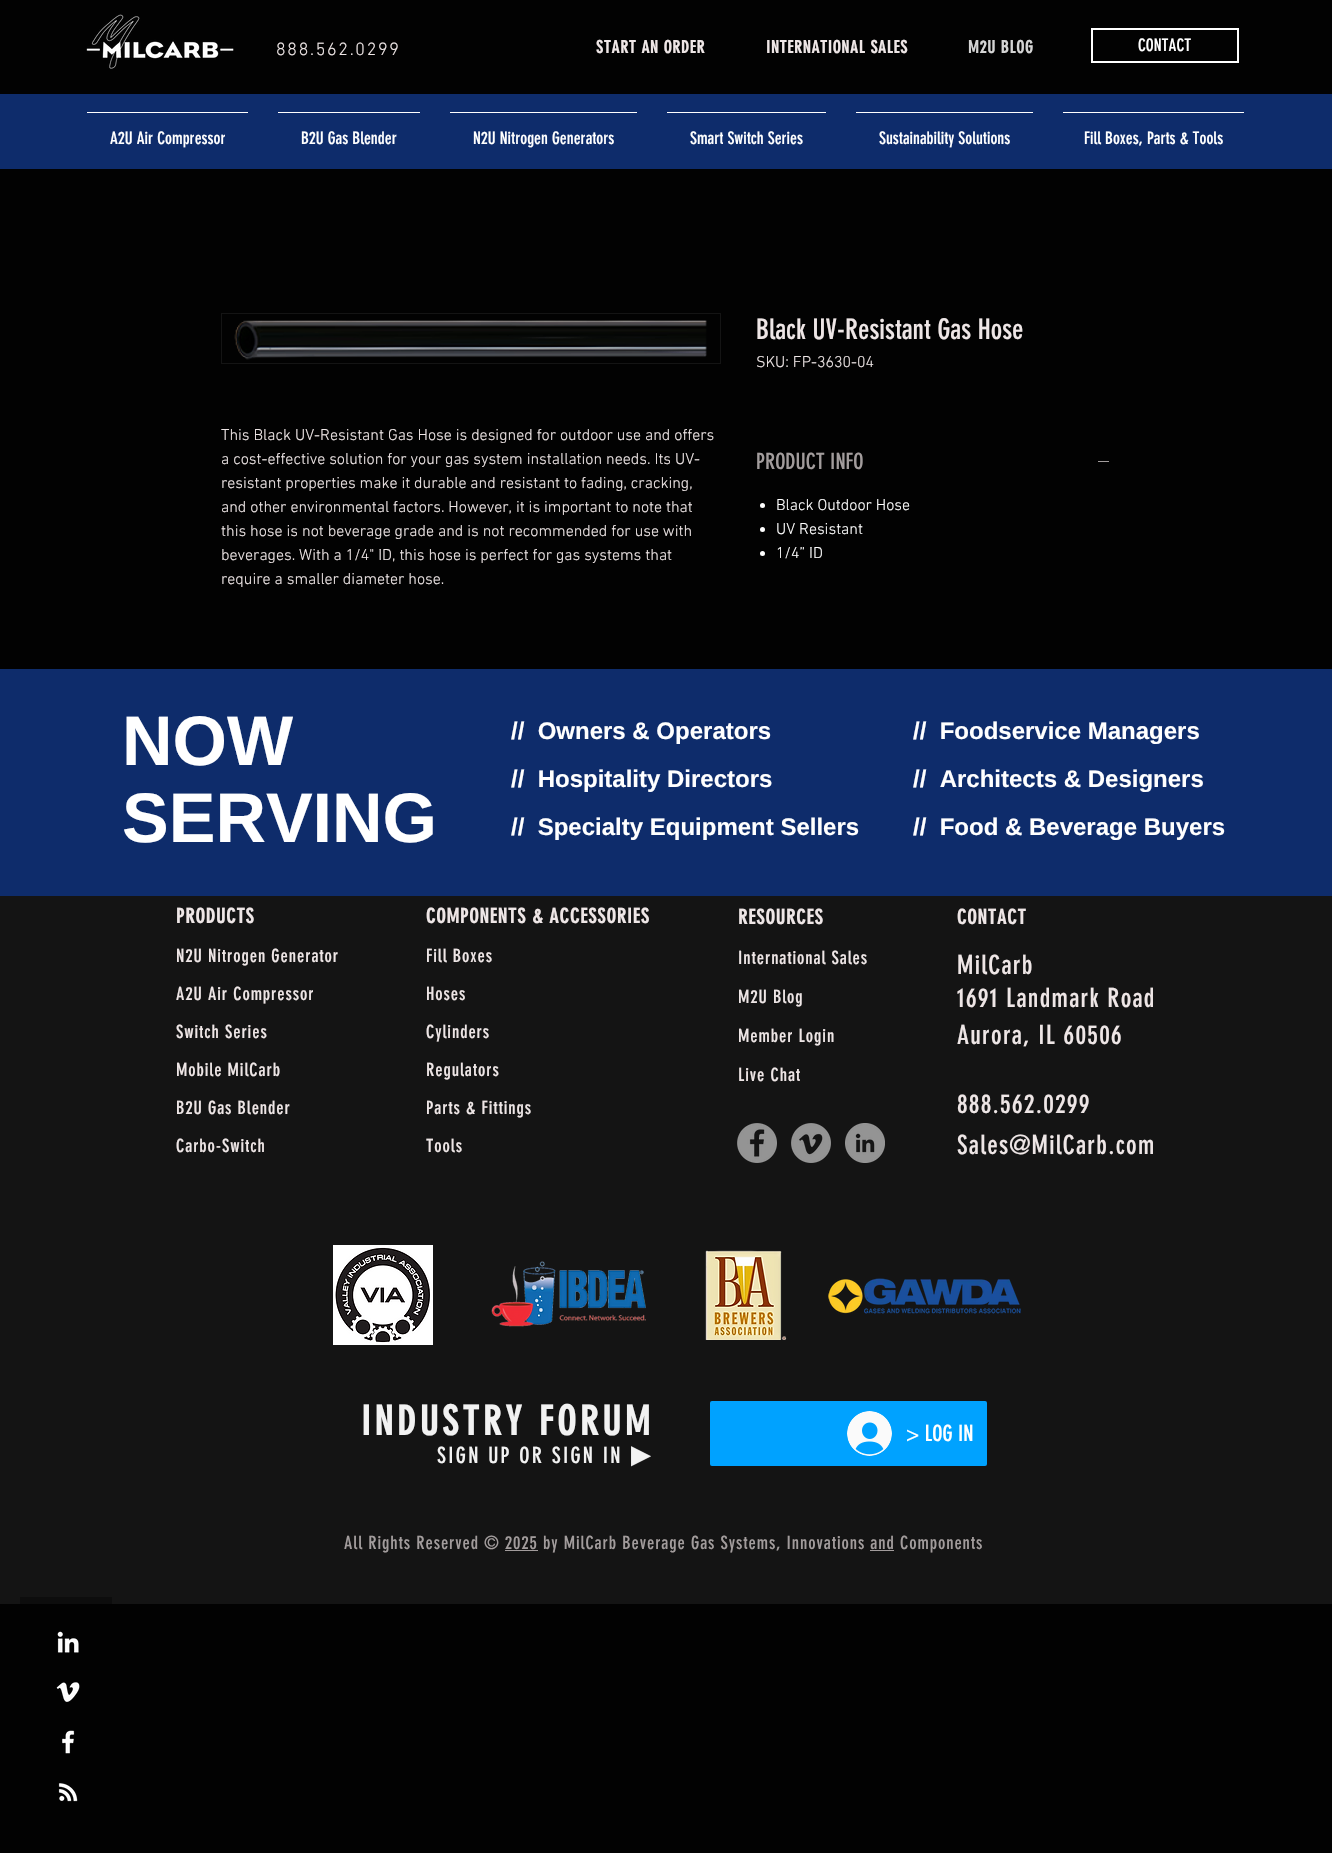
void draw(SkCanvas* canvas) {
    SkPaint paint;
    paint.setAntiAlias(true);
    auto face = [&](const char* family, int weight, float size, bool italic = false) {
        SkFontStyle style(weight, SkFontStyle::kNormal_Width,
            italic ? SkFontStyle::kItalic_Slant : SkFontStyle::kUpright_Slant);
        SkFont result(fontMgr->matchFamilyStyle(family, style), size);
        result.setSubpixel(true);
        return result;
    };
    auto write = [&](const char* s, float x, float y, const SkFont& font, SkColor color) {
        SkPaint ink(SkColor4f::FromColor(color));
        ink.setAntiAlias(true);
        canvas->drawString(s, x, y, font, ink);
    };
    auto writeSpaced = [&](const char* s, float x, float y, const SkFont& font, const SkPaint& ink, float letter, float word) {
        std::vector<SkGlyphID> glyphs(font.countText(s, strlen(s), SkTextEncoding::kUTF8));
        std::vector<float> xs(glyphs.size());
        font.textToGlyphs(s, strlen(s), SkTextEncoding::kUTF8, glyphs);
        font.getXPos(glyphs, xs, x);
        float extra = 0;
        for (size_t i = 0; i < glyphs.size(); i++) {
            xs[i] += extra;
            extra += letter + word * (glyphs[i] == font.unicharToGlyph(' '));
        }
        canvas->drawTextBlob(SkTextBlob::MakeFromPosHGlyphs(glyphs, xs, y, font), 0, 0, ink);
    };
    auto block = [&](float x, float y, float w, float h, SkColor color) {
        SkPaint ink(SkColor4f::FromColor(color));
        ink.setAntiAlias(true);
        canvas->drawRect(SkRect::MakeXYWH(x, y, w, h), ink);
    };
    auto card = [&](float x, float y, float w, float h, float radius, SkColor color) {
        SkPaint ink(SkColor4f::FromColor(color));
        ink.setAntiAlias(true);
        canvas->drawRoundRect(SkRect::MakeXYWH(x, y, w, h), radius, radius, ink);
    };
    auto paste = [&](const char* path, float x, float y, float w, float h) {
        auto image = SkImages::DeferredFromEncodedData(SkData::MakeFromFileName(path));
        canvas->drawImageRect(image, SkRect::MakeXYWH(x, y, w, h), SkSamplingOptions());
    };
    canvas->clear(SkColorSetRGB(2, 2, 2));
    paste("pic1.png", 86, 14, 148, 55);
    auto kFont1 = face("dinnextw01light", 300, 18);
    paint.setColor(SkColorSetRGB(238, 230, 230));
    writeSpaced("888.562.0299", 276, 55, kFont1, paint, 1.75f, 0);
    auto kFont2 = face("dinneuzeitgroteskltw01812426", 700, 17);
    writeSpaced("START AN ORDER", 596, 53, kFont2, paint, 0.8f, 0);
    writeSpaced("INTERNATIONAL SALES", 766, 53, kFont2, paint, 0.8f, 0);
    paint.setColor(SkColorSetRGB(212, 212, 212));
    writeSpaced("M2U BLOG", 968, 53, kFont2, paint, 0.8f, 0);
    paint.setStyle(SkPaint::kStroke_Style);
    paint.setStrokeWidth(2);
    paint.setColor(SK_ColorWHITE);
    canvas->drawRect(SkRect::MakeXYWH(1092, 29, 146, 33), paint);
    auto kFont3 = face("dinneuzeitgroteskltw01812426", 400, 17);
    write("CONTACT", 1138, 51, kFont3, SK_ColorWHITE);
    block(0, 94, 1332, 75, SkColorSetRGB(14, 44, 107));
    block(87, 112, 161, 1, SK_ColorWHITE);
    write("A2U Air Compressor", 110, 144, kFont3, SK_ColorWHITE);
    block(278, 112, 142, 1, SK_ColorWHITE);
    write("B2U Gas Blender", 301, 144, kFont3, SK_ColorWHITE);
    block(450, 112, 187, 1, SK_ColorWHITE);
    write("N2U Nitrogen Generators", 473, 144, kFont3, SK_ColorWHITE);
    block(667, 112, 159, 1, SK_ColorWHITE);
    write("Smart Switch Series", 690, 144, kFont3, SK_ColorWHITE);
    block(856, 112, 177, 1, SK_ColorWHITE);
    write("Sustainability Solutions", 879, 144, kFont3, SK_ColorWHITE);
    block(1063, 112, 181, 1, SK_ColorWHITE);
    write("Fill Boxes, Parts & Tools", 1084, 144, kFont3, SK_ColorWHITE);
    paint.setStrokeWidth(1);
    paint.setColor(SkColorSetRGB(20, 20, 20));
    canvas->drawRect(SkRect::MakeXYWH(221.5f, 313.5f, 499, 50), paint);
    paste("pic2.png", 234, 320, 473, 40);
    auto kFont4 = face("dinnextw01light", 300, 16);
    write("This Black UV-Resistant Gas Hose is designed for outdoor use and offers", 221, 440, kFont4, SkColorSetRGB(238, 230, 230));
    write("a cost-effective solution for your gas system installation needs. Its UV-", 221, 464, kFont4, SkColorSetRGB(238, 230, 230));
    write("resistant properties make it durable and resistant to fading, cracking,", 221, 488, kFont4, SkColorSetRGB(238, 230, 230));
    write("and other environmental factors. However, it is important to note that", 221, 512, kFont4, SkColorSetRGB(238, 230, 230));
    write("this hose is not beverage grade and is not recommended for use with", 221, 536, kFont4, SkColorSetRGB(238, 230, 230));
    write("beverages. With a 1/4\" ID, this hose is perfect for gas systems that", 221, 560, kFont4, SkColorSetRGB(238, 230, 230));
    write("require a smaller diameter hose.", 221, 584, kFont4, SkColorSetRGB(238, 230, 230));
    auto kFont5 = face("dinneuzeitgroteskltw01812426", 400, 28);
    write("Black UV-Resistant Gas Hose", 756, 339, kFont5, SkColorSetRGB(238, 230, 230));
    write("SKU: FP-3630-04", 756, 367, kFont4, SkColorSetRGB(238, 230, 230));
    auto kFont6 = face("dinneuzeitgroteskltw01812426", 400, 22);
    write("PRODUCT INFO", 756, 469, kFont6, SkColorSetRGB(162, 156, 156));
    block(1098, 461, 11, 1, SkColorSetRGB(162, 156, 156));
    paint.setStyle(SkPaint::kFill_Style);
    paint.setColor(SK_ColorWHITE);
    canvas->drawCircle(762.5f, 505.5f, 2.5f, paint);
    write("Black Outdoor Hose", 776, 510, kFont4, SK_ColorWHITE);
    canvas->drawCircle(762.5f, 529.5f, 2.5f, paint);
    write("UV Resistant", 776, 534, kFont4, SK_ColorWHITE);
    canvas->drawCircle(762.5f, 553.5f, 2.5f, paint);
    write("1/4” ID", 776, 558, kFont4, SK_ColorWHITE);
    block(0, 669, 1332, 227, SkColorSetRGB(14, 44, 107));
    auto kFont7 = face("Liberation Sans", 700, 70);
    write("NOW", 122, 765, kFont7, SK_ColorWHITE);
    write("SERVING", 122, 842, kFont7, SK_ColorWHITE);
    auto kFont8 = face("Liberation Sans", 700, 24);
    write("//  Owners & Operators", 511, 739, kFont8, SK_ColorWHITE);
    write("//  Hospitality Directors", 511, 787, kFont8, SK_ColorWHITE);
    write("//  Specialty Equipment Sellers", 511, 835, kFont8, SK_ColorWHITE);
    write("//  Foodservice Managers", 913, 739, kFont8, SK_ColorWHITE);
    write("//  Architects & Designers", 913, 787, kFont8, SK_ColorWHITE);
    write("//  Food & Beverage Buyers", 913, 835, kFont8, SK_ColorWHITE);
    block(0, 896, 1332, 708, SkColorSetRGB(20, 20, 20));
    auto kFont9 = face("dinneuzeitgroteskltw01812426", 700, 20);
    paint.setColor(SkColorSetRGB(238, 230, 230));
    writeSpaced("PRODUCTS", 176, 923, kFont9, paint, 1, 0);
    auto kFont10 = face("dinneuzeitgroteskltw01812426", 400, 18);
    writeSpaced("N2U Nitrogen Generator", 176, 962, kFont10, paint, 0.9f, 0);
    writeSpaced("A2U Air Compressor", 176, 1000, kFont10, paint, 0.9f, 0);
    writeSpaced("Switch Series", 176, 1038, kFont10, paint, 0.9f, 0);
    writeSpaced("Mobile MilCarb", 176, 1076, kFont10, paint, 0.9f, 0);
    writeSpaced("B2U Gas Blender", 176, 1114, kFont10, paint, 0.9f, 0);
    writeSpaced("Carbo-Switch", 176, 1152, kFont10, paint, 0.9f, 0);
    writeSpaced("COMPONENTS & ACCESSORIES", 426, 923, kFont9, paint, 1, 0);
    writeSpaced("Fill Boxes", 426, 962, kFont10, paint, 0.9f, 0);
    writeSpaced("Hoses", 426, 1000, kFont10, paint, 0.9f, 0);
    writeSpaced("Cylinders", 426, 1038, kFont10, paint, 0.9f, 0);
    writeSpaced("Regulators", 426, 1076, kFont10, paint, 0.9f, 0);
    writeSpaced("Parts & Fittings", 426, 1114, kFont10, paint, 0.9f, 0);
    writeSpaced("Tools", 426, 1152, kFont10, paint, 0.9f, 0);
    writeSpaced("RESOURCES", 738, 924, kFont9, paint, 1, 0);
    writeSpaced("International Sales", 738, 964, kFont10, paint, 0.9f, 0);
    writeSpaced("M2U Blog", 738, 1003, kFont10, paint, 0.9f, 0);
    writeSpaced("Member Login", 738, 1042, kFont10, paint, 0.9f, 0);
    writeSpaced("Live Chat", 738, 1081, kFont10, paint, 0.9f, 0);
    writeSpaced("CONTACT", 957, 924, kFont9, paint, 1, 0);
    paste("pic3.png", 737, 1123, 40, 40);
    paste("pic4.png", 791, 1123, 40, 40);
    paste("pic5.png", 845, 1123, 40, 40);
    auto kFont11 = face("dinneuzeitgroteskltw01812426", 400, 26);
    writeSpaced("MilCarb", 957, 974, kFont11, paint, 1.25f, 0);
    writeSpaced("1691 Landmark Road", 957, 1007, kFont11, paint, 1.25f, 0);
    writeSpaced("Aurora, IL 60506", 957, 1044, kFont11, paint, 1.25f, 0);
    writeSpaced("888.562.0299", 957, 1113, kFont11, paint, 1.25f, 0);
    writeSpaced("Sales@MilCarb.com", 957, 1154, kFont11, paint, 1.25f, 0);
    paste("pic6.png", 333, 1245, 100, 100);
    paste("pic7.png", 491, 1261, 155, 66);
    paste("pic8.png", 705, 1250, 82, 90);
    paste("pic9.png", 828, 1278, 193, 36);
    auto kFont12 = face("dinneuzeitgroteskltw01812426", 700, 40);
    paint.setColor(SkColorSetRGB(242, 242, 242));
    writeSpaced("INDUSTRY FORUM", 361, 1435, kFont12, paint, 4, 0);
    writeSpaced("SIGN UP OR SIGN IN", 437, 1463, kFont6, paint, 2.25f, 0);
    auto kFont13 = face("DejaVu Sans", 400, 26);
    writeSpaced("▶", 631, 1463, kFont13, paint, 3, 0);
    card(710, 1401, 277, 65, 2, SkColorSetRGB(0, 162, 255));
    paste("pic10.png", 847, 1411, 45, 45);
    write("> LOG IN", 906, 1441, kFont6, SK_ColorWHITE);
    paint.setColor(SkColorSetRGB(162, 156, 156));
    writeSpaced("All Rights Reserved © 2025 by MilCarb Beverage Gas Systems, Innovations and Components", 344, 1549, kFont10, paint, 0.9f, 0);
    block(505, 1550, 33, 1, SkColorSetRGB(162, 156, 156));
    block(870, 1550, 24, 1, SkColorSetRGB(162, 156, 156));
    block(20, 1597, 92, 7, SkColorSetRGB(13, 13, 13));
    paste("pic11.png", 57, 1631, 22, 22);
    paste("pic12.png", 56, 1682, 24, 20);
    paste("pic13.png", 62, 1730, 13, 24);
    paste("pic14.png", 58, 1783, 20, 19);
}
